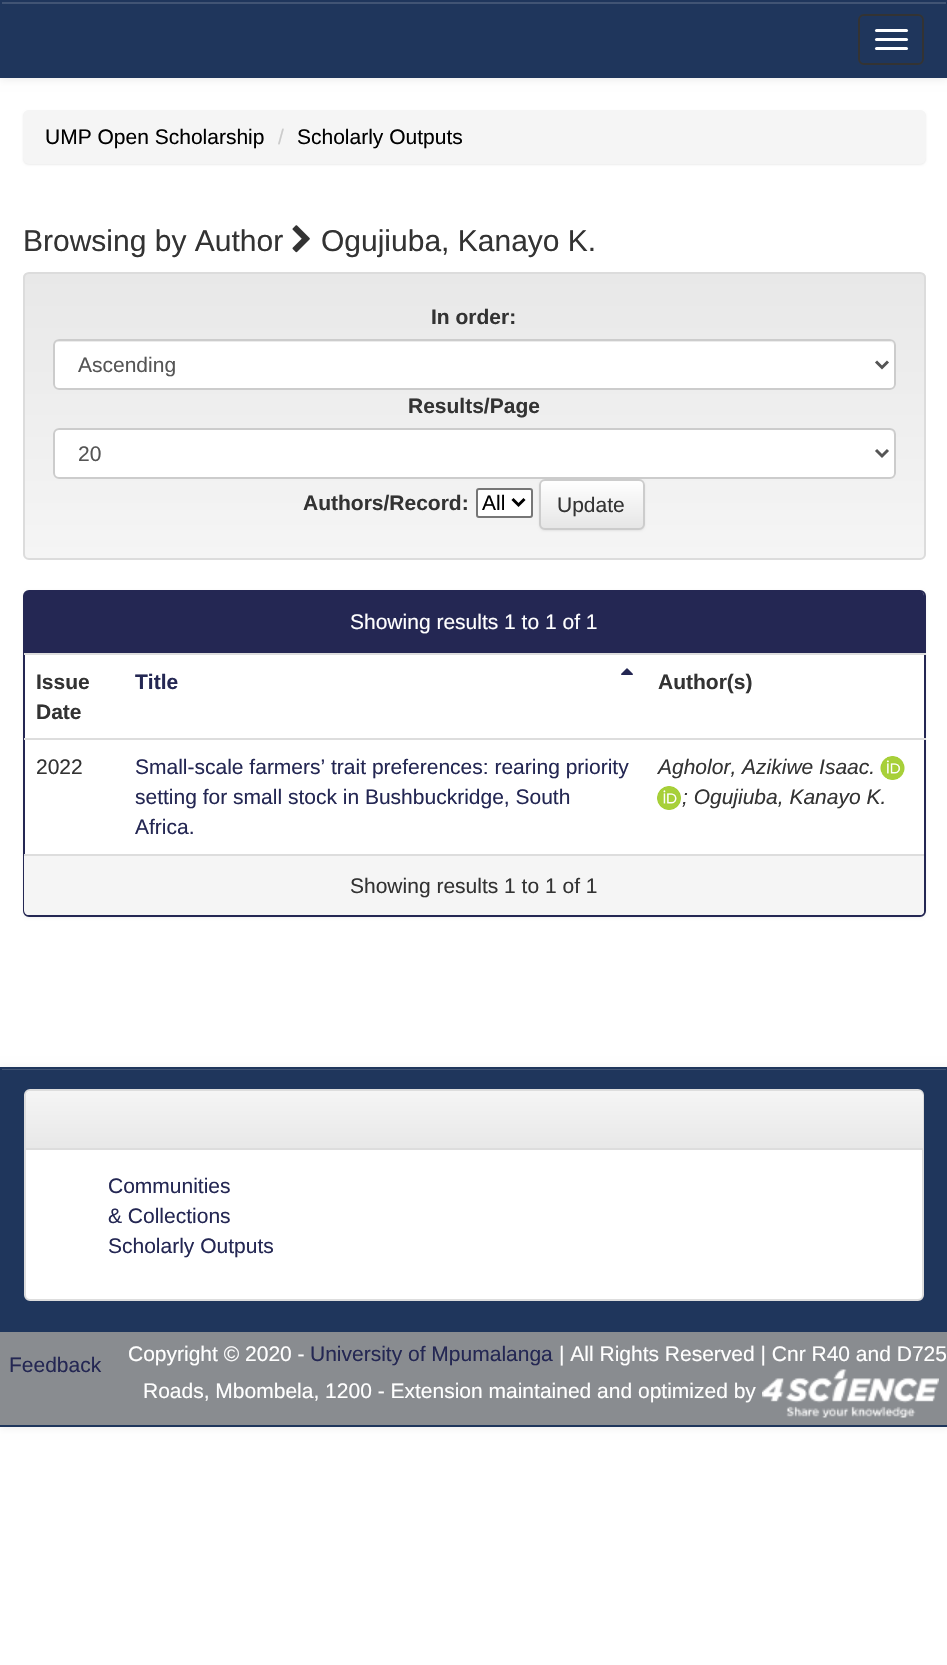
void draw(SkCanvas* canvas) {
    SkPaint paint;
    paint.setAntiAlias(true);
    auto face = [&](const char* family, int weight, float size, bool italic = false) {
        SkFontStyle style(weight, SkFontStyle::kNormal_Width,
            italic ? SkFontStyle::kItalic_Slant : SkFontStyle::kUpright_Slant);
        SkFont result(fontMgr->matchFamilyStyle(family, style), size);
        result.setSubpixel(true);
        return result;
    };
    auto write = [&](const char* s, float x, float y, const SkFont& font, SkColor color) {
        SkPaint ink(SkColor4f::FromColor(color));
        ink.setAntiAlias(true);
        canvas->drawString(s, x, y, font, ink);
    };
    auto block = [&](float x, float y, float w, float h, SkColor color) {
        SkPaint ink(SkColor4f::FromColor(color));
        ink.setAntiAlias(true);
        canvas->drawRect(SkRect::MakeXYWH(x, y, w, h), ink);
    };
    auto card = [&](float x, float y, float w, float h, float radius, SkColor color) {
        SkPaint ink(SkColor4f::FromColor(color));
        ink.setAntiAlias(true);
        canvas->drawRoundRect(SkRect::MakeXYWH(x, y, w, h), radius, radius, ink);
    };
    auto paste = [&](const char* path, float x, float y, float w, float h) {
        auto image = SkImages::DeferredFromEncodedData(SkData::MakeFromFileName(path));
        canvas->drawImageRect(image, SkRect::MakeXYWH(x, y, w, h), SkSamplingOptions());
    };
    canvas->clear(SK_ColorWHITE);
    paint.setColor(SkColorSetARGB(18, 0, 0, 0));
    paint.setMaskFilter(SkMaskFilter::MakeBlur(kNormal_SkBlurStyle, 4));
    canvas->drawRect(SkRect::MakeXYWH(0, 2, 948, 78), paint);
    paint.setMaskFilter(nullptr);
    block(2, 4, 944, 72, SkColorSetRGB(31, 54, 92));
    block(2, 2, 945, 2, SkColorSetRGB(65, 84, 116));
    paint.setStyle(SkPaint::kStroke_Style);
    paint.setStrokeWidth(2);
    paint.setColor(SkColorSetRGB(31, 54, 92));
    canvas->drawRect(SkRect::MakeXYWH(1, 1, 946, 76), paint);
    paint.setColor(SkColorSetRGB(51, 51, 51));
    canvas->drawRoundRect(SkRect::MakeXYWH(859, 15, 64, 49), 5, 5, paint);
    card(875, 29, 33, 3, 1.5f, SK_ColorWHITE);
    card(875, 38, 33, 3, 1.5f, SK_ColorWHITE);
    card(875, 47, 33, 3, 1.5f, SK_ColorWHITE);
    paint.setStyle(SkPaint::kFill_Style);
    paint.setColor(SkColorSetARGB(18, 0, 0, 0));
    paint.setMaskFilter(SkMaskFilter::MakeBlur(kNormal_SkBlurStyle, 1));
    canvas->drawRoundRect(SkRect::MakeXYWH(23, 111, 903, 54), 6, 6, paint);
    paint.setMaskFilter(nullptr);
    card(23, 110, 903, 54, 6, SkColorSetRGB(245, 245, 245));
    auto kFont1 = face("Liberation Sans", 400, 21);
    write("UMP Open Scholarship", 45, 144, kFont1, SK_ColorBLACK);
    write("/", 278, 144, kFont1, SkColorSetRGB(204, 204, 204));
    write("Scholarly Outputs", 297, 144, kFont1, SK_ColorBLACK);
    auto kFont2 = face("Liberation Sans", 400, 30);
    write("Browsing by Author", 23, 251, kFont2, SkColorSetRGB(51, 51, 51));
    paste("pic1.png", 292, 225, 18, 28);
    write("Ogujiuba, Kanayo K.", 321, 251, kFont2, SkColorSetRGB(51, 51, 51));
    canvas->save();
    canvas->clipPath(SkPathBuilder().moveTo(29, 272).lineTo(920, 272).cubicTo(923.5f, 272, 926, 274.5f, 926, 278).lineTo(926, 554).cubicTo(926, 557.5f, 923.5f, 560, 920, 560).lineTo(29, 560).cubicTo(25.5f, 560, 23, 557.5f, 23, 554).lineTo(23, 278).cubicTo(23, 274.5f, 25.5f, 272, 29, 272).close().detach(), true);
    {
        const SkColor colors[] = {SkColorSetRGB(232, 232, 232), SkColorSetRGB(245, 245, 245)};
        const float stops[] = {0, 1};
        const SkPoint ends[] = {{474, 273}, {474, 558}};
        paint.setShader(SkGradientShader::MakeLinear(ends, colors, stops, 2, SkTileMode::kClamp));
        paint.setAlpha(255);
    }
    canvas->drawRect(SkRect::MakeXYWH(23, 273, 903, 285), paint);
    canvas->restore();
    paint.setStyle(SkPaint::kStroke_Style);
    paint.setShader(nullptr);
    paint.setColor(SkColorSetRGB(220, 220, 220));
    canvas->drawRoundRect(SkRect::MakeXYWH(24, 273, 901, 286), 5, 5, paint);
    auto kFont3 = face("Liberation Sans", 700, 21);
    write("In order:", 431, 324, kFont3, SkColorSetRGB(51, 51, 51));
    card(53, 339, 843, 51, 6, SK_ColorWHITE);
    paint.setStyle(SkPaint::kFill_Style);
    paint.setColor(SkColorSetRGB(236, 236, 236));
    canvas->drawPath(SkPathBuilder().moveTo(58, 342).lineTo(890, 342).cubicTo(892, 342, 894, 344, 894, 346).cubicTo(894, 343, 892, 341, 889, 341).lineTo(59, 341).cubicTo(56, 341, 54, 343, 54, 346).cubicTo(54, 344, 56, 342, 58, 342).close().detach(), paint);
    paint.setStyle(SkPaint::kStroke_Style);
    paint.setColor(SkColorSetRGB(204, 204, 204));
    canvas->drawRoundRect(SkRect::MakeXYWH(54, 340, 841, 49), 5, 5, paint);
    paint.setStrokeWidth(3);
    paint.setColor(SkColorSetRGB(85, 85, 85));
    canvas->drawPath(SkPathBuilder().moveTo(876, 361.5f).lineTo(882, 367.5f).lineTo(888, 361.5f).detach(), paint);
    write("Ascending", 78, 372, kFont1, SkColorSetRGB(85, 85, 85));
    write("Results/Page", 408, 413, kFont3, SkColorSetRGB(51, 51, 51));
    card(53, 428, 843, 51, 6, SK_ColorWHITE);
    paint.setStyle(SkPaint::kFill_Style);
    paint.setColor(SkColorSetRGB(236, 236, 236));
    canvas->drawPath(SkPathBuilder().moveTo(58, 430).lineTo(890, 430).cubicTo(892, 430, 894, 433, 894, 435).lineTo(894, 434).cubicTo(894, 431, 892, 429, 889, 429).lineTo(59, 429).cubicTo(56, 429, 54, 431, 54, 434).lineTo(54, 435).cubicTo(54, 433, 56, 430, 58, 430).close().detach(), paint);
    paint.setStyle(SkPaint::kStroke_Style);
    paint.setStrokeWidth(2);
    paint.setColor(SkColorSetRGB(204, 204, 204));
    canvas->drawRoundRect(SkRect::MakeXYWH(54, 429, 841, 49), 5, 5, paint);
    paint.setStrokeWidth(3);
    paint.setColor(SkColorSetRGB(85, 85, 85));
    canvas->drawPath(SkPathBuilder().moveTo(876, 450).lineTo(882, 456).lineTo(888, 450).detach(), paint);
    write("20", 78, 461, kFont1, SkColorSetRGB(85, 85, 85));
    write("Authors/Record:", 303, 510, kFont3, SkColorSetRGB(51, 51, 51));
    paint.setStyle(SkPaint::kFill_Style);
    paint.setColor(SK_ColorWHITE);
    canvas->drawRoundRect(SkRect::MakeXYWH(477, 489, 55, 28), 2, 2, paint);
    paint.setStyle(SkPaint::kStroke_Style);
    paint.setStrokeWidth(2);
    paint.setColor(SkColorSetRGB(118, 118, 118));
    canvas->drawRoundRect(SkRect::MakeXYWH(477, 489, 55, 28), 2, 2, paint);
    paint.setStrokeWidth(3);
    paint.setColor(SK_ColorBLACK);
    canvas->drawPath(SkPathBuilder().moveTo(512.5f, 499).lineTo(518.5f, 505).lineTo(524.5f, 499).detach(), paint);
    write("All", 482, 510, kFont1, SK_ColorBLACK);
    paint.setStyle(SkPaint::kFill_Style);
    paint.setColor(SkColorSetARGB(18, 0, 0, 0));
    paint.setMaskFilter(SkMaskFilter::MakeBlur(kNormal_SkBlurStyle, 1));
    canvas->drawRoundRect(SkRect::MakeXYWH(539, 480, 106, 51), 6, 6, paint);
    paint.setMaskFilter(nullptr);
    canvas->save();
    canvas->clipPath(SkPathBuilder().moveTo(545, 479).lineTo(639, 479).cubicTo(642.5f, 479, 645, 481.5f, 645, 485).lineTo(645, 524).cubicTo(645, 527.5f, 642.5f, 530, 639, 530).lineTo(545, 530).cubicTo(541.5f, 530, 539, 527.5f, 539, 524).lineTo(539, 485).cubicTo(539, 481.5f, 541.5f, 479, 545, 479).close().detach(), true);
    {
        const SkColor colors[] = {SK_ColorWHITE, SkColorSetRGB(230, 230, 230)};
        const float stops[] = {0, 1};
        const SkPoint ends[] = {{592, 480}, {592, 528}};
        paint.setShader(SkGradientShader::MakeLinear(ends, colors, stops, 2, SkTileMode::kClamp));
        paint.setAlpha(255);
    }
    canvas->drawRect(SkRect::MakeXYWH(539, 480, 106, 48), paint);
    canvas->restore();
    paint.setStyle(SkPaint::kStroke_Style);
    paint.setStrokeWidth(2);
    paint.setShader(nullptr);
    paint.setColor(SkColorSetRGB(204, 204, 204));
    canvas->drawRoundRect(SkRect::MakeXYWH(540, 480, 104, 49), 5, 5, paint);
    write("Update", 557, 512, kFont1, SkColorSetRGB(51, 51, 51));
    paint.setStyle(SkPaint::kFill_Style);
    paint.setColor(SkColorSetARGB(13, 0, 0, 0));
    paint.setMaskFilter(SkMaskFilter::MakeBlur(kNormal_SkBlurStyle, 1.5f));
    canvas->drawRoundRect(SkRect::MakeXYWH(23, 591, 903, 327), 6, 6, paint);
    paint.setMaskFilter(nullptr);
    paint.setColor(SK_ColorWHITE);
    canvas->drawRoundRect(SkRect::MakeXYWH(24, 591, 901, 325), 5, 5, paint);
    paint.setStyle(SkPaint::kStroke_Style);
    paint.setColor(SkColorSetRGB(36, 39, 83));
    canvas->drawRoundRect(SkRect::MakeXYWH(24, 591, 901, 325), 5, 5, paint);
    paint.setStyle(SkPaint::kFill_Style);
    canvas->drawPath(SkPathBuilder().moveTo(29, 591).lineTo(919, 591).cubicTo(922, 591, 924, 593, 924, 596).lineTo(924, 651).lineTo(24, 651).lineTo(24, 596).cubicTo(24, 593, 26, 591, 29, 591).close().detach(), paint);
    block(24, 651, 900, 2, SkColorSetRGB(36, 39, 83));
    write("Showing results 1 to 1 of 1", 350, 629, kFont1, SK_ColorWHITE);
    write("Issue", 36, 689, kFont3, SkColorSetRGB(51, 51, 51));
    write("Date", 36, 719, kFont3, SkColorSetRGB(51, 51, 51));
    paste("pic2.png", 621, 668, 12, 7);
    write("Title", 135, 689, kFont3, SkColorSetRGB(36, 39, 83));
    block(24, 653, 902, 2, SkColorSetRGB(221, 221, 221));
    write("Author(s)", 658, 689, kFont3, SkColorSetRGB(51, 51, 51));
    write("2022", 36, 774, kFont1, SkColorSetRGB(51, 51, 51));
    write("Small-scale farmers’ trait preferences: rearing priority", 135, 774, kFont1, SkColorSetRGB(36, 39, 83));
    write("setting for small stock in Bushbuckridge, South", 135, 804, kFont1, SkColorSetRGB(36, 39, 83));
    write("Africa.", 135, 834, kFont1, SkColorSetRGB(36, 39, 83));
    block(24, 738, 902, 2, SkColorSetRGB(221, 221, 221));
    auto kFont4 = face("Liberation Sans", 400, 21, true);
    write("Agholor, Azikiwe Isaac.", 658, 774, kFont4, SkColorSetRGB(51, 51, 51));
    paste("pic3.png", 880, 756, 25, 24);
    paste("pic4.png", 657, 786, 24, 24);
    write("; Ogujiuba, Kanayo K.", 682, 804, kFont4, SkColorSetRGB(51, 51, 51));
    paint.setColor(SkColorSetRGB(245, 245, 245));
    canvas->drawPath(SkPathBuilder().moveTo(24, 854).lineTo(924, 854).lineTo(924, 910).cubicTo(924, 913, 922, 915, 919, 915).lineTo(29, 915).cubicTo(26, 915, 24, 913, 24, 910).close().detach(), paint);
    block(24, 854, 900, 2, SkColorSetRGB(221, 221, 221));
    write("Showing results 1 to 1 of 1", 350, 893, kFont1, SkColorSetRGB(51, 51, 51));
    paint.setColor(SkColorSetARGB(18, 0, 0, 0));
    paint.setMaskFilter(SkMaskFilter::MakeBlur(kNormal_SkBlurStyle, 4));
    canvas->drawRect(SkRect::MakeXYWH(0, 1068, 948, 360), paint);
    paint.setMaskFilter(nullptr);
    block(2, 1070, 944, 262, SkColorSetRGB(31, 54, 92));
    block(2, 1069, 945, 1, SkColorSetRGB(65, 84, 116));
    paint.setStyle(SkPaint::kStroke_Style);
    paint.setColor(SkColorSetRGB(31, 54, 92));
    canvas->drawRect(SkRect::MakeXYWH(1, 1068, 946, 358), paint);
    paint.setStyle(SkPaint::kFill_Style);
    paint.setColor(SK_ColorWHITE);
    canvas->drawRoundRect(SkRect::MakeXYWH(25, 1090, 898, 210), 5, 5, paint);
    paint.setStyle(SkPaint::kStroke_Style);
    paint.setColor(SkColorSetRGB(221, 221, 221));
    canvas->drawRoundRect(SkRect::MakeXYWH(25, 1090, 898, 210), 5, 5, paint);
    paint.setStyle(SkPaint::kFill_Style);
    {
        const SkColor colors[] = {SkColorSetRGB(245, 245, 245), SkColorSetRGB(232, 232, 232)};
        const float stops[] = {0, 1};
        const SkPoint ends[] = {{474, 1091}, {474, 1148}};
        paint.setShader(SkGradientShader::MakeLinear(ends, colors, stops, 2, SkTileMode::kClamp));
        paint.setAlpha(255);
    }
    canvas->drawPath(SkPathBuilder().moveTo(31, 1091).lineTo(918, 1091).cubicTo(921, 1091, 923, 1093, 923, 1096).lineTo(923, 1148).lineTo(26, 1148).lineTo(26, 1096).cubicTo(26, 1093, 28, 1091, 31, 1091).close().detach(), paint);
    block(26, 1148, 897, 2, SkColorSetRGB(221, 221, 221));
    write("Communities", 108, 1193, kFont1, SkColorSetRGB(36, 39, 83));
    write("& Collections", 108, 1223, kFont1, SkColorSetRGB(36, 39, 83));
    write("Scholarly Outputs", 108, 1253, kFont1, SkColorSetRGB(36, 39, 83));
    block(0, 1332, 947, 93, SkColorSetRGB(137, 140, 144));
    write("Feedback", 9, 1372, kFont1, SkColorSetRGB(36, 39, 83));
    write("Copyright © 2020 -", 128, 1361, kFont1, SK_ColorWHITE);
    write("University of Mpumalanga", 310, 1361, kFont1, SkColorSetRGB(36, 39, 83));
    write("| All Rights Reserved | Cnr R40 and D725", 559, 1361, kFont1, SK_ColorWHITE);
    write("Roads, Mbombela, 1200 - Extension maintained and optimized by", 143, 1398, kFont1, SK_ColorWHITE);
    paste("pic5.png", 762, 1369, 177, 49);
}
